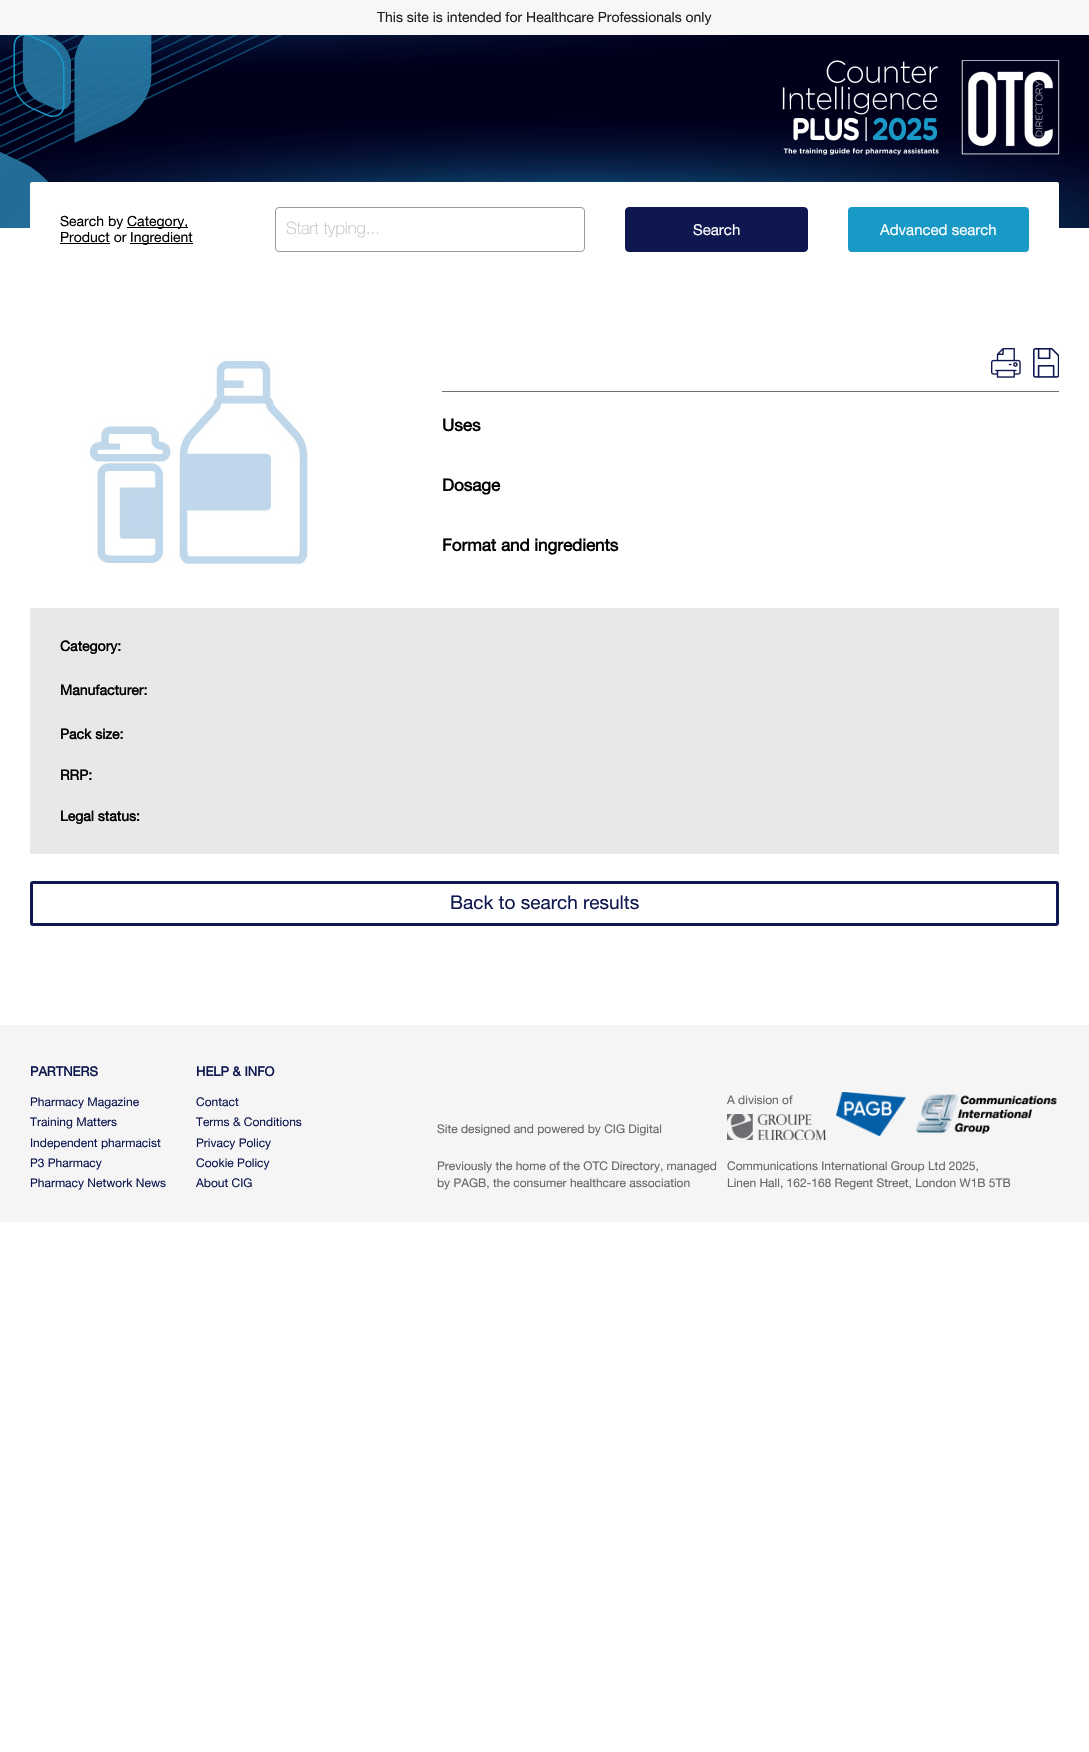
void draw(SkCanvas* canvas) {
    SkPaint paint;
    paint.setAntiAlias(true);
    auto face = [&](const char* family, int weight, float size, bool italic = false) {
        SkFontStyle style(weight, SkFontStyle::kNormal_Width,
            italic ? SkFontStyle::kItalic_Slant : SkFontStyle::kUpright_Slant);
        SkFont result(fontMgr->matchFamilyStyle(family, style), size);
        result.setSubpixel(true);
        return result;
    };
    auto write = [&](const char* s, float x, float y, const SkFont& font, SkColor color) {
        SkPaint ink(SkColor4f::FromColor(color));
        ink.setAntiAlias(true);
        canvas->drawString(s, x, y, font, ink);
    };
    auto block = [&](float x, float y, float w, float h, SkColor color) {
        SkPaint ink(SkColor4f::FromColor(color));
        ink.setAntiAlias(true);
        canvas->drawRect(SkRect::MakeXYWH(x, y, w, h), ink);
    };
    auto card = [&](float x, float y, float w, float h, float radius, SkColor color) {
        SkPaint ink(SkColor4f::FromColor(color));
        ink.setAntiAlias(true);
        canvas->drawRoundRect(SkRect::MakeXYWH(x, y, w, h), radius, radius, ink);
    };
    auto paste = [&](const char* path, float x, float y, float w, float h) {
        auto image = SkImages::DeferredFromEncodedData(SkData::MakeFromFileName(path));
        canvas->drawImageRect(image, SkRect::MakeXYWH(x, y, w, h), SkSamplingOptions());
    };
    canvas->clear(SK_ColorWHITE);
    block(0, 0, 1089, 35, SkColorSetRGB(247, 247, 247));
    auto kFont1 = face("Helvetica Neue", 400, 14);
    write("This site is intended for Healthcare Professionals only", 377, 22, kFont1, SkColorSetRGB(32, 32, 32));
    paste("pic1.png", 0, 35, 1089, 193);
    paste("pic2.png", 782, 60, 278, 95);
    card(30, 182, 1029, 95, 2, SK_ColorWHITE);
    write("Search by", 60, 226, kFont1, SK_ColorBLACK);
    block(127, 227, 61, 1, SK_ColorBLACK);
    write("Category,", 127, 226, kFont1, SK_ColorBLACK);
    write("Product or", 60, 242, kFont1, SK_ColorBLACK);
    block(60, 243, 50, 1, SK_ColorBLACK);
    block(130, 243, 63, 1, SK_ColorBLACK);
    write("Ingredient", 130, 242, kFont1, SK_ColorBLACK);
    paint.setStyle(SkPaint::kStroke_Style);
    paint.setStrokeWidth(1);
    paint.setColor(SkColorSetRGB(154, 154, 154));
    canvas->drawRoundRect(SkRect::MakeXYWH(275.5f, 207.5f, 309, 44), 3.5f, 3.5f, paint);
    auto kFont2 = face("Helvetica Neue", 200, 17);
    write("Start typing...", 286, 234, kFont2, SkColorSetRGB(189, 189, 189));
    paint.setStyle(SkPaint::kFill_Style);
    paint.setColor(SkColorSetRGB(14, 23, 80));
    canvas->drawRoundRect(SkRect::MakeXYWH(625.5f, 207.5f, 182, 44), 3.5f, 3.5f, paint);
    paint.setStyle(SkPaint::kStroke_Style);
    canvas->drawRoundRect(SkRect::MakeXYWH(625.5f, 207.5f, 182, 44), 3.5f, 3.5f, paint);
    auto kFont3 = face("Helvetica Neue", 400, 15);
    write("Search", 693, 235, kFont3, SK_ColorWHITE);
    card(848, 207, 181, 45, 4, SkColorSetRGB(25, 153, 198));
    write("Advanced search", 880, 235, kFont3, SK_ColorWHITE);
    paste("pic3.png", 86, 356, 224, 208);
    block(442, 391, 617, 1, SkColorSetRGB(112, 112, 112));
    paste("pic4.png", 991, 348, 30, 30);
    paste("pic5.png", 1033, 348, 26, 30);
    auto kFont4 = face("Helvetica Neue", 700, 17);
    write("Uses", 442, 431, kFont4, SK_ColorBLACK);
    write("Dosage", 442, 491, kFont4, SK_ColorBLACK);
    write("Format and ingredients", 442, 551, kFont4, SK_ColorBLACK);
    block(30, 608, 1029, 246, SkColorSetRGB(232, 232, 232));
    auto kFont5 = face("Helvetica Neue", 700, 14);
    write("Category:", 60, 651, kFont5, SK_ColorBLACK);
    write("Manufacturer:", 60, 695, kFont5, SK_ColorBLACK);
    write("Pack size:", 60, 739, kFont5, SK_ColorBLACK);
    write("RRP:", 60, 780, kFont5, SK_ColorBLACK);
    write("Legal status:", 60, 821, kFont5, SK_ColorBLACK);
    paint.setStrokeWidth(3);
    canvas->drawRoundRect(SkRect::MakeXYWH(31.5f, 882.5f, 1026, 42), 1.5f, 1.5f, paint);
    auto kFont6 = face("Helvetica Neue", 400, 19);
    write("Back to search results", 450, 909, kFont6, SkColorSetRGB(14, 23, 80));
    block(0, 1025, 1089, 197, SkColorSetRGB(245, 245, 245));
    auto kFont7 = face("Helvetica Neue", 700, 13);
    write("PARTNERS", 30, 1076, kFont7, SkColorSetRGB(14, 23, 80));
    auto kFont8 = face("Helvetica Neue", 400, 12);
    write("Pharmacy Magazine", 30, 1106, kFont8, SkColorSetRGB(14, 23, 80));
    write("Training Matters", 30, 1126, kFont8, SkColorSetRGB(14, 23, 80));
    write("Independent pharmacist", 30, 1147, kFont8, SkColorSetRGB(14, 23, 80));
    write("P3 Pharmacy", 30, 1167, kFont8, SkColorSetRGB(14, 23, 80));
    write("Pharmacy Network News", 30, 1187, kFont8, SkColorSetRGB(14, 23, 80));
    write("HELP & INFO", 196, 1076, kFont7, SkColorSetRGB(14, 23, 80));
    write("Contact", 196, 1106, kFont8, SkColorSetRGB(14, 23, 80));
    write("Terms & Conditions", 196, 1126, kFont8, SkColorSetRGB(14, 23, 80));
    write("Privacy Policy", 196, 1147, kFont8, SkColorSetRGB(14, 23, 80));
    write("Cookie Policy", 196, 1167, kFont8, SkColorSetRGB(14, 23, 80));
    write("About CIG", 196, 1187, kFont8, SkColorSetRGB(14, 23, 80));
    write("Site designed and powered by CIG Digital", 437, 1133, kFont8, SkColorSetRGB(103, 103, 103));
    write("Previously the home of the OTC Directory, managed", 437, 1170, kFont8, SkColorSetRGB(103, 103, 103));
    write("by PAGB, the consumer healthcare association", 437, 1187, kFont8, SkColorSetRGB(103, 103, 103));
    write("A division of", 727, 1104, kFont8, SkColorSetRGB(103, 103, 103));
    paste("pic6.png", 727, 1114, 99, 26);
    paste("pic7.png", 836, 1092, 70, 44);
    paste("pic8.png", 916, 1094, 142, 41);
    write("Communications International Group Ltd 2025,", 727, 1170, kFont8, SkColorSetRGB(103, 103, 103));
    write("Linen Hall, 162-168 Regent Street, London W1B 5TB", 727, 1187, kFont8, SkColorSetRGB(103, 103, 103));
}
